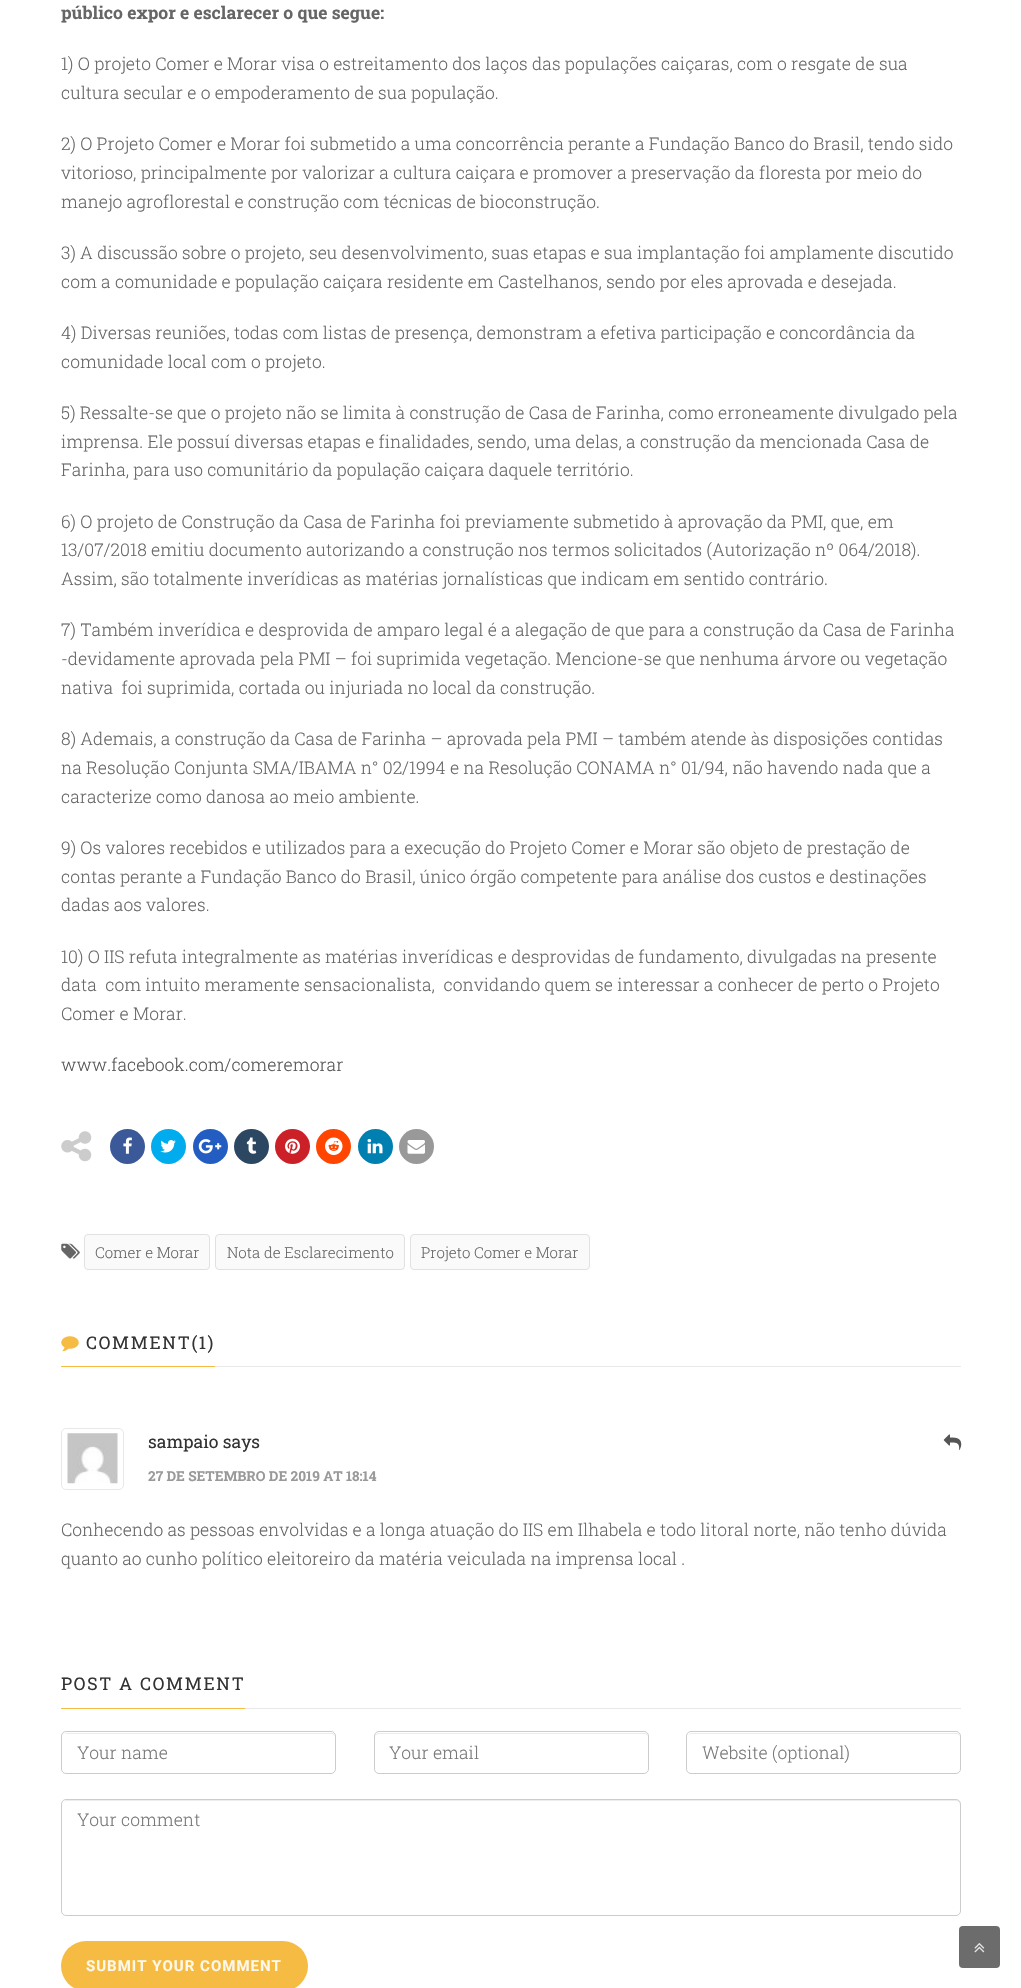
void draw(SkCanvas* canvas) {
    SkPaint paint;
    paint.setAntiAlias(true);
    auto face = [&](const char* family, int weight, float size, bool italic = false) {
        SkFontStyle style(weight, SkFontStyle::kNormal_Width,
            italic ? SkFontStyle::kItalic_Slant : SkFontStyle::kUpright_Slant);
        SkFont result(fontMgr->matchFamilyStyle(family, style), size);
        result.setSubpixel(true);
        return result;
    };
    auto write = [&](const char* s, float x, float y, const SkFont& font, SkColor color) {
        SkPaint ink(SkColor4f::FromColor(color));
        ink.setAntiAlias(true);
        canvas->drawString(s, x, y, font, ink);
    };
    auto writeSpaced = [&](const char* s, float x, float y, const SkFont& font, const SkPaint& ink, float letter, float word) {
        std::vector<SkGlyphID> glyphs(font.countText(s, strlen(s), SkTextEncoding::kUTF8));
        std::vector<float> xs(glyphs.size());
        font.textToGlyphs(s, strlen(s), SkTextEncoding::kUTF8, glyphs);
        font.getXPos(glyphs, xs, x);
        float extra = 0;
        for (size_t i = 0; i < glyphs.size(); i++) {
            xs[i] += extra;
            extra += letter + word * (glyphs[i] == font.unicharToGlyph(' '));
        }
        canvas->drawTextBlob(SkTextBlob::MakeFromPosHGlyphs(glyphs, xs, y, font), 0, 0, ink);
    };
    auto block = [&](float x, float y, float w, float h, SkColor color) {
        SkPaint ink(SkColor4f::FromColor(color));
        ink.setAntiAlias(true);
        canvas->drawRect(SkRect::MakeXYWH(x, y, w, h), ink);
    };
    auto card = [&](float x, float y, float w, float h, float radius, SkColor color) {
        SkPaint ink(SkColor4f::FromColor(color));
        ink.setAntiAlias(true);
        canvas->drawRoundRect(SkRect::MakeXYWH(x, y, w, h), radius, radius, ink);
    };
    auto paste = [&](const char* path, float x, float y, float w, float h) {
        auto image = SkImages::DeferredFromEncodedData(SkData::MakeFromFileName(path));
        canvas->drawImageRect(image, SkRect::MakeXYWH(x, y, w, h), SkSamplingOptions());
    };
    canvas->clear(SK_ColorWHITE);
    auto kFont1 = face("Roboto Slab", 700, 17.5f);
    write("público expor e esclarecer o que segue:", 61, 19, kFont1, SkColorSetRGB(102, 102, 102));
    auto kFont2 = face("Roboto Slab", 300, 17.5f);
    write("1) O projeto Comer e Morar visa o estreitamento dos laços das populações caiçaras, com o resgate de sua", 61, 70, kFont2, SkColorSetRGB(102, 102, 102));
    write("cultura secular e o empoderamento de sua população.", 61, 99, kFont2, SkColorSetRGB(102, 102, 102));
    write("2) O Projeto Comer e Morar foi submetido a uma concorrência perante a Fundação Banco do Brasil, tendo sido", 61, 150, kFont2, SkColorSetRGB(102, 102, 102));
    write("vitorioso, principalmente por valorizar a cultura caiçara e promover a preservação da floresta por meio do", 61, 179, kFont2, SkColorSetRGB(102, 102, 102));
    write("manejo agroflorestal e construção com técnicas de bioconstrução.", 61, 208, kFont2, SkColorSetRGB(102, 102, 102));
    write("3) A discussão sobre o projeto, seu desenvolvimento, suas etapas e sua implantação foi amplamente discutido", 61, 259, kFont2, SkColorSetRGB(102, 102, 102));
    write("com a comunidade e população caiçara residente em Castelhanos, sendo por eles aprovada e desejada.", 61, 288, kFont2, SkColorSetRGB(102, 102, 102));
    write("4) Diversas reuniões, todas com listas de presença, demonstram a efetiva participação e concordância da", 61, 339, kFont2, SkColorSetRGB(102, 102, 102));
    write("comunidade local com o projeto.", 61, 368, kFont2, SkColorSetRGB(102, 102, 102));
    write("5) Ressalte-se que o projeto não se limita à construção de Casa de Farinha, como erroneamente divulgado pela", 61, 419, kFont2, SkColorSetRGB(102, 102, 102));
    write("imprensa. Ele possuí diversas etapas e finalidades, sendo, uma delas, a construção da mencionada Casa de", 61, 448, kFont2, SkColorSetRGB(102, 102, 102));
    write("Farinha, para uso comunitário da população caiçara daquele território.", 61, 476, kFont2, SkColorSetRGB(102, 102, 102));
    write("6) O projeto de Construção da Casa de Farinha foi previamente submetido à aprovação da PMI, que, em", 61, 528, kFont2, SkColorSetRGB(102, 102, 102));
    write("13/07/2018 emitiu documento autorizando a construção nos termos solicitados (Autorização nº 064/2018).", 61, 556, kFont2, SkColorSetRGB(102, 102, 102));
    write("Assim, são totalmente inverídicas as matérias jornalísticas que indicam em sentido contrário.", 61, 585, kFont2, SkColorSetRGB(102, 102, 102));
    write("7) Também inverídica e desprovida de amparo legal é a alegação de que para a construção da Casa de Farinha", 61, 636, kFont2, SkColorSetRGB(102, 102, 102));
    write("-devidamente aprovada pela PMI – foi suprimida vegetação. Mencione-se que nenhuma árvore ou vegetação", 61, 665, kFont2, SkColorSetRGB(102, 102, 102));
    write("nativa  foi suprimida, cortada ou injuriada no local da construção.", 61, 694, kFont2, SkColorSetRGB(102, 102, 102));
    write("8) Ademais, a construção da Casa de Farinha – aprovada pela PMI – também atende às disposições contidas", 61, 745, kFont2, SkColorSetRGB(102, 102, 102));
    write("na Resolução Conjunta SMA/IBAMA n° 02/1994 e na Resolução CONAMA n° 01/94, não havendo nada que a", 61, 774, kFont2, SkColorSetRGB(102, 102, 102));
    write("caracterize como danosa ao meio ambiente.", 61, 803, kFont2, SkColorSetRGB(102, 102, 102));
    write("9) Os valores recebidos e utilizados para a execução do Projeto Comer e Morar são objeto de prestação de", 61, 854, kFont2, SkColorSetRGB(102, 102, 102));
    write("contas perante a Fundação Banco do Brasil, único órgão competente para análise dos custos e destinações", 61, 883, kFont2, SkColorSetRGB(102, 102, 102));
    write("dadas aos valores.", 61, 911, kFont2, SkColorSetRGB(102, 102, 102));
    write("10) O IIS refuta integralmente as matérias inverídicas e desprovidas de fundamento, divulgadas na presente", 61, 963, kFont2, SkColorSetRGB(102, 102, 102));
    write("data  com intuito meramente sensacionalista,  convidando quem se interessar a conhecer de perto o Projeto", 61, 991, kFont2, SkColorSetRGB(102, 102, 102));
    write("Comer e Morar.", 61, 1020, kFont2, SkColorSetRGB(102, 102, 102));
    write("www.facebook.com/comeremorar", 61, 1071, kFont2, SkColorSetRGB(85, 85, 85));
    paste("pic1.png", 61, 1131, 31, 31);
    paint.setColor(SkColorSetRGB(59, 89, 152));
    canvas->drawCircle(127.5f, 1146.5f, 17.5f, paint);
    paste("pic2.png", 123, 1137, 9, 17);
    paint.setColor(SkColorSetRGB(0, 172, 237));
    canvas->drawCircle(168.5f, 1146.5f, 17.5f, paint);
    paste("pic3.png", 160, 1140, 16, 13);
    paint.setColor(SkColorSetRGB(36, 93, 193));
    canvas->drawCircle(210.5f, 1146.5f, 17.5f, paint);
    paste("pic4.png", 198, 1139, 24, 15);
    paint.setColor(SkColorSetRGB(44, 71, 98));
    canvas->drawCircle(251.5f, 1146.5f, 17.5f, paint);
    paste("pic5.png", 246, 1137, 11, 17);
    paint.setColor(SkColorSetRGB(203, 32, 39));
    canvas->drawCircle(292.5f, 1146.5f, 17.5f, paint);
    paste("pic6.png", 285, 1138, 15, 16);
    paint.setColor(SkColorSetRGB(255, 69, 0));
    canvas->drawCircle(333.5f, 1146.5f, 17.5f, paint);
    paste("pic7.png", 325, 1137, 18, 18);
    paint.setColor(SkColorSetRGB(0, 127, 177));
    canvas->drawCircle(375.5f, 1146.5f, 17.5f, paint);
    paste("pic8.png", 367, 1139, 16, 15);
    paint.setColor(SkColorSetRGB(153, 153, 153));
    canvas->drawCircle(416.5f, 1146.5f, 17.5f, paint);
    paste("pic9.png", 407, 1140, 18, 14);
    paste("pic10.png", 61, 1243, 19, 16);
    paint.setColor(SkColorSetRGB(250, 250, 250));
    canvas->drawRoundRect(SkRect::MakeXYWH(84.5f, 1234.5f, 125, 35), 3.5f, 3.5f, paint);
    paint.setStyle(SkPaint::kStroke_Style);
    paint.setStrokeWidth(1);
    paint.setColor(SkColorSetRGB(225, 225, 225));
    canvas->drawRoundRect(SkRect::MakeXYWH(84.5f, 1234.5f, 125, 35), 3.5f, 3.5f, paint);
    auto kFont3 = face("Roboto Slab", 300, 15);
    write("Comer e Morar", 95, 1258, kFont3, SkColorSetRGB(102, 102, 102));
    paint.setStyle(SkPaint::kFill_Style);
    paint.setColor(SkColorSetRGB(250, 250, 250));
    canvas->drawRoundRect(SkRect::MakeXYWH(215.5f, 1234.5f, 189, 35), 3.5f, 3.5f, paint);
    paint.setStyle(SkPaint::kStroke_Style);
    paint.setColor(SkColorSetRGB(225, 225, 225));
    canvas->drawRoundRect(SkRect::MakeXYWH(215.5f, 1234.5f, 189, 35), 3.5f, 3.5f, paint);
    write("Nota de Esclarecimento", 227, 1258, kFont3, SkColorSetRGB(102, 102, 102));
    paint.setStyle(SkPaint::kFill_Style);
    paint.setColor(SkColorSetRGB(250, 250, 250));
    canvas->drawRoundRect(SkRect::MakeXYWH(410.5f, 1234.5f, 179, 35), 3.5f, 3.5f, paint);
    paint.setStyle(SkPaint::kStroke_Style);
    paint.setColor(SkColorSetRGB(225, 225, 225));
    canvas->drawRoundRect(SkRect::MakeXYWH(410.5f, 1234.5f, 179, 35), 3.5f, 3.5f, paint);
    write("Projeto Comer e Morar", 421, 1258, kFont3, SkColorSetRGB(102, 102, 102));
    block(215, 1366, 746, 1, SkColorSetRGB(232, 232, 232));
    block(61, 1366, 154, 1, SkColorSetRGB(246, 187, 66));
    paste("pic11.png", 61, 1336, 18, 16);
    auto kFont4 = face("Roboto Slab", 400, 17.5f);
    paint.setStyle(SkPaint::kFill_Style);
    paint.setColor(SkColorSetRGB(51, 51, 51));
    writeSpaced("COMMENT(1)", 86, 1349, kFont4, paint, 1.75f, 0);
    paint.setStyle(SkPaint::kStroke_Style);
    paint.setColor(SkColorSetRGB(232, 232, 232));
    canvas->drawRoundRect(SkRect::MakeXYWH(61.5f, 1428.5f, 62, 61), 4.5f, 4.5f, paint);
    paste("pic12.png", 67, 1433, 51, 51);
    write("sampaio says", 148, 1448, kFont4, SkColorSetRGB(51, 51, 51));
    paste("pic13.png", 943, 1434, 19, 16);
    auto kFont5 = face("Roboto Slab", 700, 13.75f);
    write("27 DE SETEMBRO DE 2019 AT 18:14", 148, 1481, kFont5, SkColorSetRGB(153, 153, 153));
    write("Conhecendo as pessoas envolvidas e a longa atuação do IIS em Ilhabela e todo litoral norte, não tenho dúvida", 61, 1536, kFont2, SkColorSetRGB(102, 102, 102));
    write("quanto ao cunho político eleitoreiro da matéria veiculada na imprensa local .", 61, 1565, kFont2, SkColorSetRGB(102, 102, 102));
    block(245, 1708, 716, 1, SkColorSetRGB(232, 232, 232));
    block(61, 1708, 184, 1, SkColorSetRGB(246, 187, 66));
    paint.setStyle(SkPaint::kFill_Style);
    paint.setColor(SkColorSetRGB(51, 51, 51));
    writeSpaced("POST A COMMENT", 61, 1690, kFont4, paint, 1.75f, 0);
    paint.setColor(SkColorSetRGB(236, 236, 236));
    canvas->drawPath(SkPathBuilder().moveTo(66, 1734).lineTo(331, 1734).cubicTo(333, 1734, 335, 1735, 335, 1738).cubicTo(335, 1735, 334, 1733, 331, 1733).lineTo(67, 1733).lineTo(64, 1734).close().detach(), paint);
    paint.setStyle(SkPaint::kStroke_Style);
    paint.setColor(SkColorSetRGB(204, 204, 204));
    canvas->drawRoundRect(SkRect::MakeXYWH(61.5f, 1731.5f, 274, 42), 4.5f, 4.5f, paint);
    write("Your name", 77, 1759, kFont2, SkColorSetRGB(119, 119, 119));
    paint.setStyle(SkPaint::kFill_Style);
    paint.setColor(SkColorSetRGB(236, 236, 236));
    canvas->drawPath(SkPathBuilder().moveTo(379, 1734).lineTo(644, 1734).cubicTo(646, 1734, 648, 1735, 648, 1738).cubicTo(648, 1735, 647, 1733, 644, 1733).lineTo(379, 1733).cubicTo(376, 1733, 375, 1735, 375, 1738).cubicTo(375, 1735, 377, 1734, 379, 1734).close().detach(), paint);
    paint.setStyle(SkPaint::kStroke_Style);
    paint.setColor(SkColorSetRGB(204, 204, 204));
    canvas->drawRoundRect(SkRect::MakeXYWH(374.5f, 1731.5f, 274, 42), 4.5f, 4.5f, paint);
    write("Your email", 389, 1759, kFont2, SkColorSetRGB(119, 119, 119));
    paint.setStyle(SkPaint::kFill_Style);
    paint.setColor(SkColorSetRGB(236, 236, 236));
    canvas->drawPath(SkPathBuilder().moveTo(691, 1734).lineTo(956, 1734).cubicTo(958, 1734, 960, 1735, 960, 1738).cubicTo(960, 1735, 959, 1733, 956, 1733).lineTo(692, 1733).cubicTo(689, 1733, 688, 1735, 688, 1738).cubicTo(688, 1735, 689, 1734, 691, 1734).close().detach(), paint);
    paint.setStyle(SkPaint::kStroke_Style);
    paint.setColor(SkColorSetRGB(204, 204, 204));
    canvas->drawRoundRect(SkRect::MakeXYWH(686.5f, 1731.5f, 274, 42), 4.5f, 4.5f, paint);
    write("Website (optional)", 702, 1759, kFont2, SkColorSetRGB(119, 119, 119));
    paint.setStyle(SkPaint::kFill_Style);
    paint.setColor(SkColorSetRGB(236, 236, 236));
    canvas->drawPath(SkPathBuilder().moveTo(66, 1801).lineTo(956, 1801).cubicTo(958, 1801, 960, 1803, 960, 1805).lineTo(960, 1804).cubicTo(960, 1802, 958, 1800, 956, 1800).lineTo(67, 1800).cubicTo(66, 1800, 64, 1801, 64, 1802).close().detach(), paint);
    paint.setStyle(SkPaint::kStroke_Style);
    paint.setColor(SkColorSetRGB(204, 204, 204));
    canvas->drawRoundRect(SkRect::MakeXYWH(61.5f, 1799.5f, 899, 116), 4.5f, 4.5f, paint);
    write("Your comment", 77, 1826, kFont2, SkColorSetRGB(119, 119, 119));
    card(61, 1941, 247, 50, 25, SkColorSetRGB(246, 187, 66));
    auto kFont6 = face("Roboto", 700, 15);
    paint.setStyle(SkPaint::kFill_Style);
    paint.setColor(SkColorSetRGB(254, 248, 236));
    writeSpaced("SUBMIT YOUR COMMENT", 86, 1971, kFont6, paint, 1, 0);
    card(959, 1926, 41, 42, 4, SkColorSetRGB(108, 108, 108));
    paste("pic14.png", 974, 1943, 11, 10);
}
